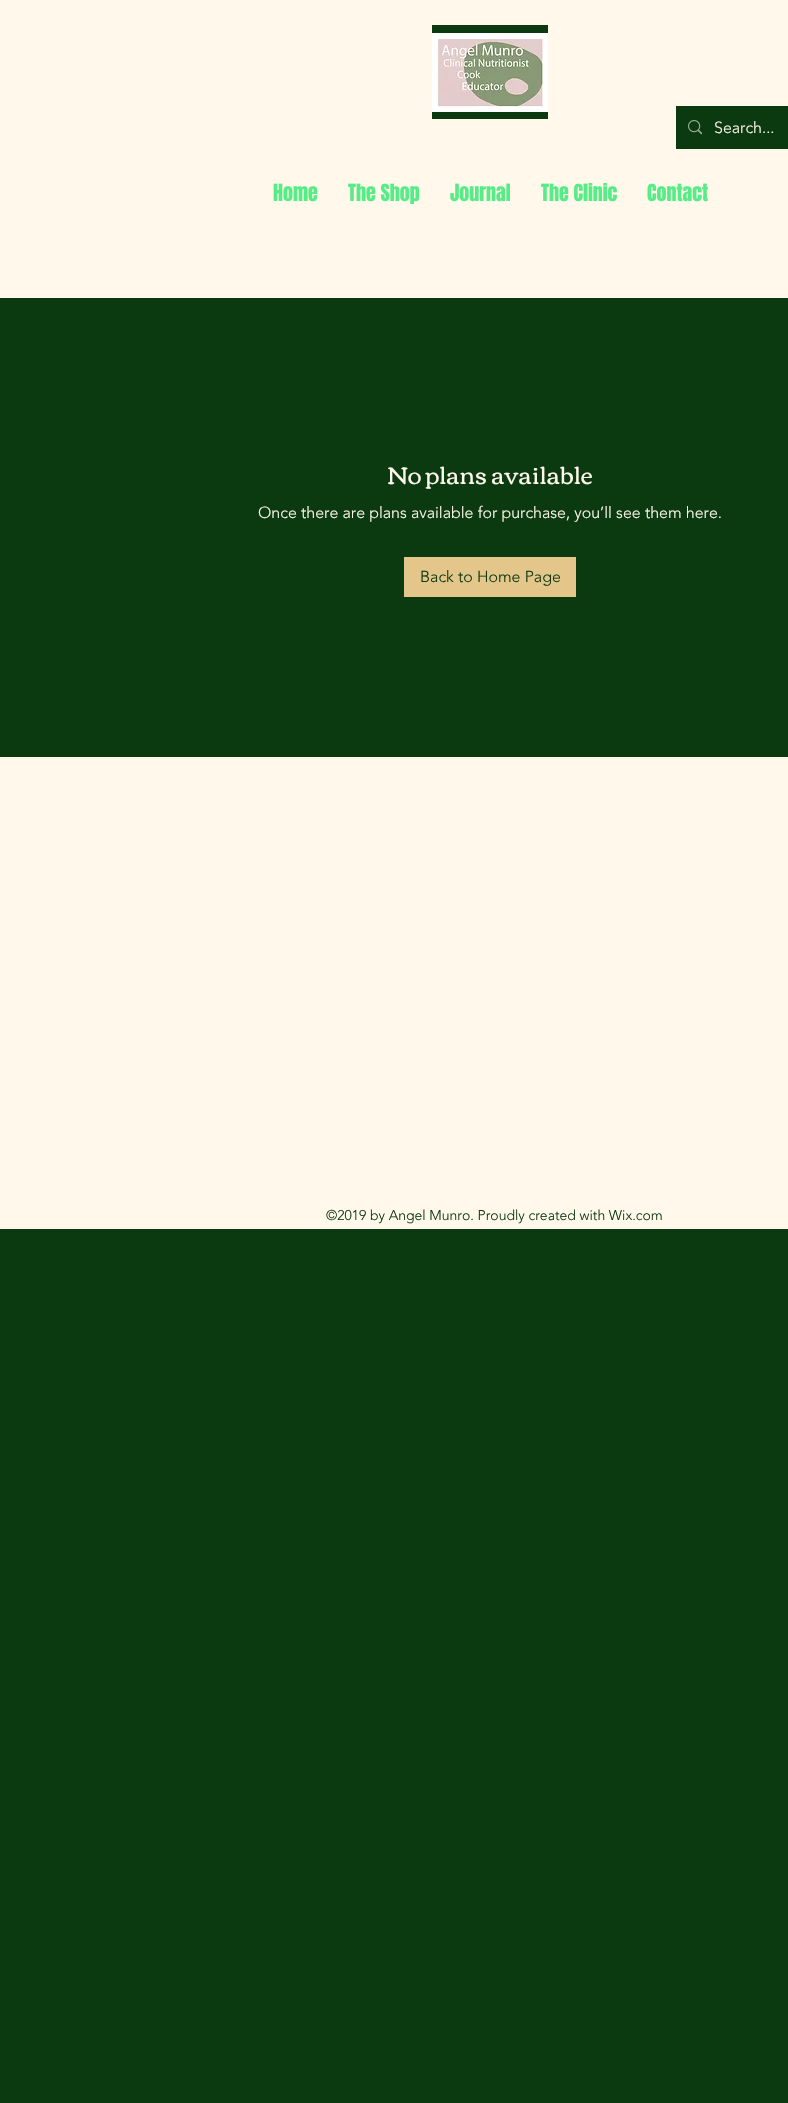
void draw(SkCanvas* canvas) {
    SkPaint paint;
    paint.setAntiAlias(true);
    auto face = [&](const char* family, int weight, float size, bool italic = false) {
        SkFontStyle style(weight, SkFontStyle::kNormal_Width,
            italic ? SkFontStyle::kItalic_Slant : SkFontStyle::kUpright_Slant);
        SkFont result(fontMgr->matchFamilyStyle(family, style), size);
        result.setSubpixel(true);
        return result;
    };
    auto write = [&](const char* s, float x, float y, const SkFont& font, SkColor color) {
        SkPaint ink(SkColor4f::FromColor(color));
        ink.setAntiAlias(true);
        canvas->drawString(s, x, y, font, ink);
    };
    auto block = [&](float x, float y, float w, float h, SkColor color) {
        SkPaint ink(SkColor4f::FromColor(color));
        ink.setAntiAlias(true);
        canvas->drawRect(SkRect::MakeXYWH(x, y, w, h), ink);
    };
    auto paste = [&](const char* path, float x, float y, float w, float h) {
        auto image = SkImages::DeferredFromEncodedData(SkData::MakeFromFileName(path));
        canvas->drawImageRect(image, SkRect::MakeXYWH(x, y, w, h), SkSamplingOptions());
    };
    canvas->clear(SkColorSetRGB(11, 57, 16));
    block(0, 0, 788, 298, SkColorSetRGB(255, 248, 235));
    block(432, 25, 116, 94, SkColorSetRGB(11, 57, 16));
    paste("pic1.png", 432, 33, 116, 79);
    block(676, 106, 112, 43, SkColorSetRGB(11, 57, 16));
    paste("pic2.png", 688, 120, 14, 15);
    auto kFont1 = face("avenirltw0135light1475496", 300, 16);
    write("Search...", 714, 133, kFont1, SkColorSetRGB(255, 248, 235));
    auto kFont2 = face("Anton", 400, 20);
    write("Home", 273, 201, kFont2, SkColorSetRGB(86, 236, 134));
    write("The Shop", 348, 201, kFont2, SkColorSetRGB(86, 236, 134));
    write("Journal", 450, 201, kFont2, SkColorSetRGB(86, 236, 134));
    write("The Clinic", 541, 201, kFont2, SkColorSetRGB(86, 236, 134));
    write("Contact", 647, 201, kFont2, SkColorSetRGB(86, 236, 134));
    auto kFont3 = face("Corben", 400, 24);
    write("No plans available", 387, 484, kFont3, SkColorSetRGB(255, 248, 235));
    write("Once there are plans available for purchase, you’ll see them here.", 258, 518, kFont1, SkColorSetRGB(255, 248, 235));
    block(404, 557, 172, 40, SkColorSetRGB(228, 197, 138));
    write("Back to Home Page", 420, 582, kFont1, SkColorSetRGB(11, 57, 16));
    block(0, 757, 788, 472, SkColorSetRGB(255, 248, 235));
    auto kFont4 = face("avenirltw0135light1475496", 300, 14);
    write("©2019 by Angel Munro. Proudly created with Wix.com", 326, 1220, kFont4, SkColorSetRGB(11, 57, 16));
}
